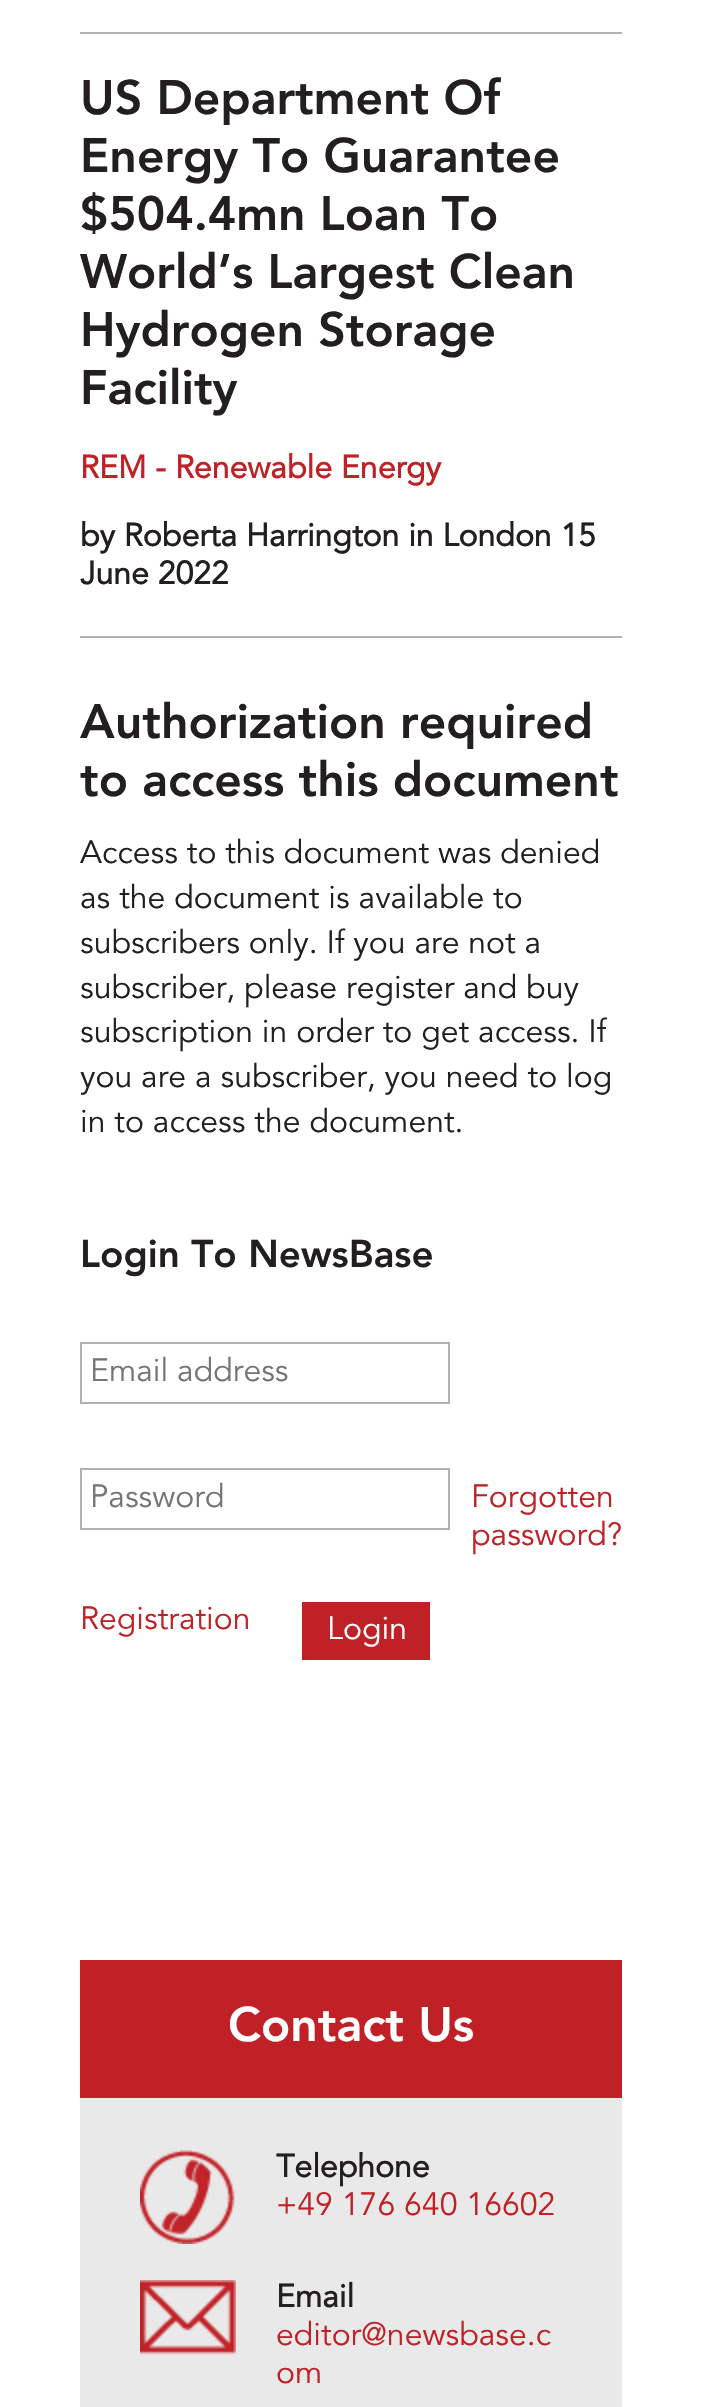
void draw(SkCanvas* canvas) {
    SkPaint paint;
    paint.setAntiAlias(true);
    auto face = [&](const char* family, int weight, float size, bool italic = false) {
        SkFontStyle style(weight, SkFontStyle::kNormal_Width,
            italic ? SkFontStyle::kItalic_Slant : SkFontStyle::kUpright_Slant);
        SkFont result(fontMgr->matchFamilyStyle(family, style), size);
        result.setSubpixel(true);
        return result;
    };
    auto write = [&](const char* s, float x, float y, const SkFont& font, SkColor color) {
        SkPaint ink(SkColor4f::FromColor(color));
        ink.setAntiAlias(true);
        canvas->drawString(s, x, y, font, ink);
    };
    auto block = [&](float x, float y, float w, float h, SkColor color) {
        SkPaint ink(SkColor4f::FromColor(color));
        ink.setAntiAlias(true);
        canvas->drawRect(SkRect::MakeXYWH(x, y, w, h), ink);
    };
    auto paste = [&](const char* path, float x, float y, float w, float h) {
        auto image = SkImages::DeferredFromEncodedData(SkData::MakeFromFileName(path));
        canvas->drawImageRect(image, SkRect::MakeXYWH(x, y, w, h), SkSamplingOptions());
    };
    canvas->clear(SK_ColorWHITE);
    block(80, 32, 542, 2, SkColorSetRGB(178, 178, 178));
    auto kFont1 = face("Avenir", 900, 48);
    write("US Department Of", 80, 114, kFont1, SkColorSetRGB(35, 31, 32));
    write("Energy To Guarantee", 80, 172, kFont1, SkColorSetRGB(35, 31, 32));
    write("$504.4mn Loan To", 80, 230, kFont1, SkColorSetRGB(35, 31, 32));
    write("World’s Largest Clean", 80, 288, kFont1, SkColorSetRGB(35, 31, 32));
    write("Hydrogen Storage", 80, 346, kFont1, SkColorSetRGB(35, 31, 32));
    write("Facility", 80, 404, kFont1, SkColorSetRGB(35, 31, 32));
    auto kFont2 = face("Avenir", 700, 32);
    write("REM - Renewable Energy", 80, 478, kFont2, SkColorSetRGB(192, 33, 38));
    block(80, 636, 542, 2, SkColorSetRGB(178, 178, 178));
    write("by Roberta Harrington in London 15", 80, 546, kFont2, SkColorSetRGB(35, 31, 32));
    write("June 2022", 80, 584, kFont2, SkColorSetRGB(35, 31, 32));
    write("Authorization required", 80, 738, kFont1, SkColorSetRGB(35, 31, 32));
    write("to access this document", 80, 796, kFont1, SkColorSetRGB(35, 31, 32));
    auto kFont3 = face("Avenir", 400, 32);
    write("Access to this document was denied", 80, 863, kFont3, SkColorSetRGB(35, 31, 32));
    write("as the document is available to", 80, 908, kFont3, SkColorSetRGB(35, 31, 32));
    write("subscribers only. If you are not a", 80, 953, kFont3, SkColorSetRGB(35, 31, 32));
    write("subscriber, please register and buy", 80, 998, kFont3, SkColorSetRGB(35, 31, 32));
    write("subscription in order to get access. If", 80, 1042, kFont3, SkColorSetRGB(35, 31, 32));
    write("you are a subscriber, you need to log", 80, 1087, kFont3, SkColorSetRGB(35, 31, 32));
    write("in to access the document.", 80, 1132, kFont3, SkColorSetRGB(35, 31, 32));
    auto kFont4 = face("Avenir", 900, 38.5f);
    write("Login To NewsBase", 80, 1267, kFont4, SkColorSetRGB(35, 31, 32));
    paint.setStyle(SkPaint::kStroke_Style);
    paint.setStrokeWidth(2);
    paint.setColor(SkColorSetRGB(177, 177, 177));
    canvas->drawRect(SkRect::MakeXYWH(81, 1343, 368, 60), paint);
    write("Email address", 90, 1381, kFont3, SkColorSetRGB(117, 117, 117));
    canvas->drawRect(SkRect::MakeXYWH(81, 1469, 368, 60), paint);
    write("Password", 90, 1507, kFont3, SkColorSetRGB(117, 117, 117));
    write("Registration", 80, 1629, kFont3, SkColorSetRGB(192, 33, 38));
    block(302, 1602, 128, 58, SkColorSetRGB(192, 33, 38));
    write("Login", 327, 1639, kFont3, SK_ColorWHITE);
    write("Forgotten", 471, 1507, kFont3, SkColorSetRGB(192, 33, 38));
    write("password?", 471, 1545, kFont3, SkColorSetRGB(192, 33, 38));
    block(80, 2098, 542, 309, SkColorSetRGB(233, 233, 233));
    block(80, 1960, 542, 138, SkColorSetRGB(192, 33, 38));
    write("Contact Us", 228, 2041, kFont1, SK_ColorWHITE);
    paste("pic1.png", 140, 2150, 95, 94);
    write("Telephone", 276, 2177, kFont2, SkColorSetRGB(35, 31, 32));
    write("+49 176 640 16602", 276, 2215, kFont3, SkColorSetRGB(192, 33, 38));
    paste("pic2.png", 140, 2280, 96, 75);
    write("Email", 276, 2307, kFont2, SkColorSetRGB(35, 31, 32));
    write("editor@newsbase.c", 276, 2345, kFont3, SkColorSetRGB(192, 33, 38));
    write("om", 276, 2383, kFont3, SkColorSetRGB(192, 33, 38));
}
